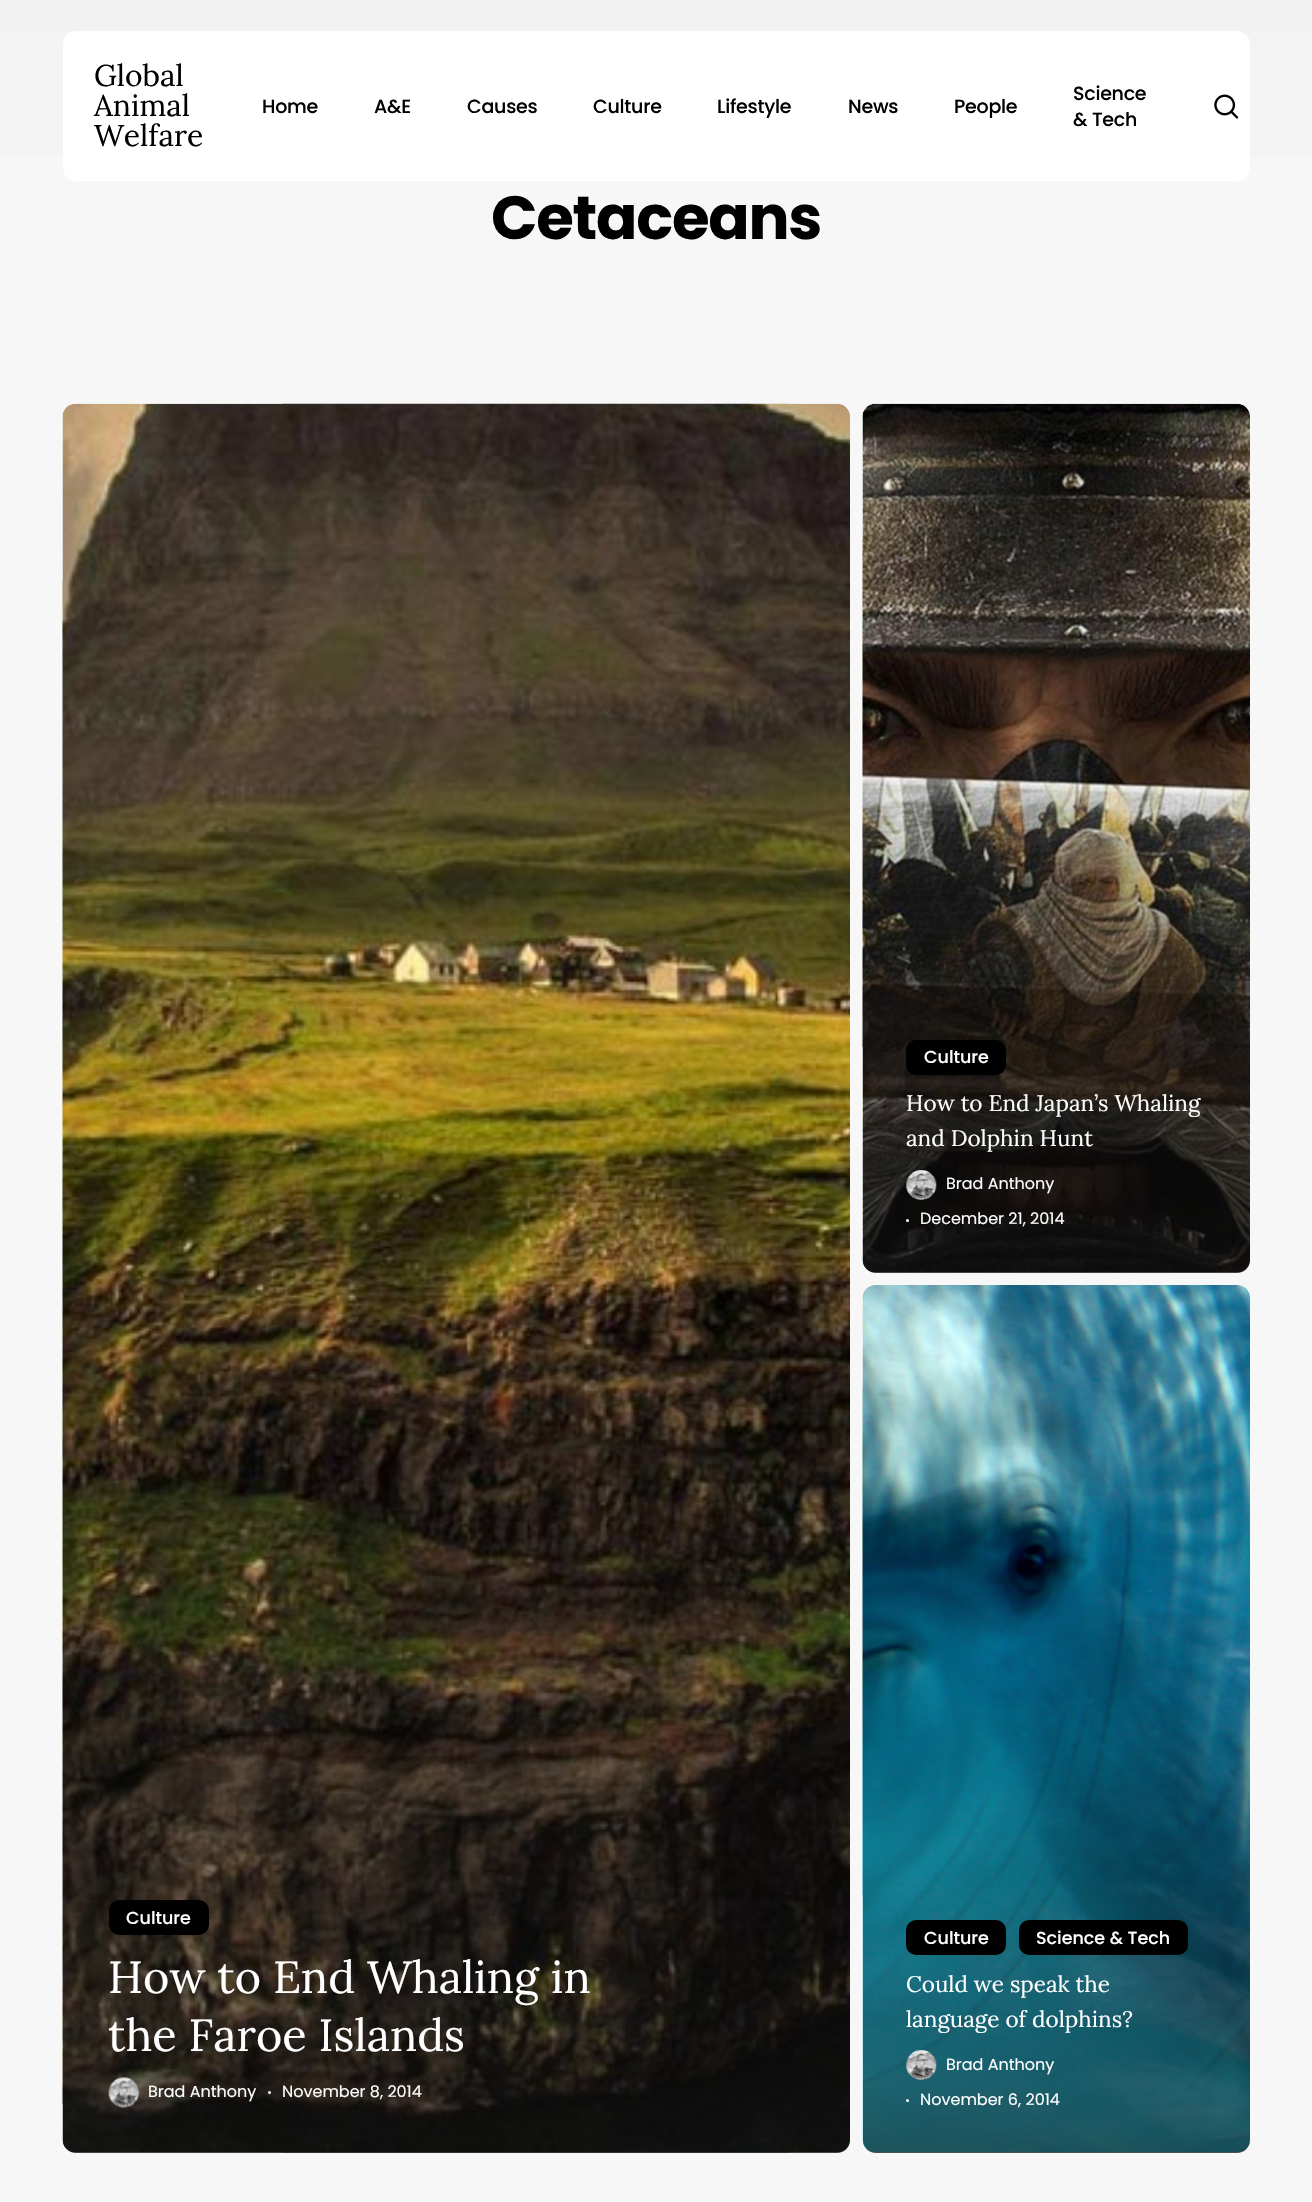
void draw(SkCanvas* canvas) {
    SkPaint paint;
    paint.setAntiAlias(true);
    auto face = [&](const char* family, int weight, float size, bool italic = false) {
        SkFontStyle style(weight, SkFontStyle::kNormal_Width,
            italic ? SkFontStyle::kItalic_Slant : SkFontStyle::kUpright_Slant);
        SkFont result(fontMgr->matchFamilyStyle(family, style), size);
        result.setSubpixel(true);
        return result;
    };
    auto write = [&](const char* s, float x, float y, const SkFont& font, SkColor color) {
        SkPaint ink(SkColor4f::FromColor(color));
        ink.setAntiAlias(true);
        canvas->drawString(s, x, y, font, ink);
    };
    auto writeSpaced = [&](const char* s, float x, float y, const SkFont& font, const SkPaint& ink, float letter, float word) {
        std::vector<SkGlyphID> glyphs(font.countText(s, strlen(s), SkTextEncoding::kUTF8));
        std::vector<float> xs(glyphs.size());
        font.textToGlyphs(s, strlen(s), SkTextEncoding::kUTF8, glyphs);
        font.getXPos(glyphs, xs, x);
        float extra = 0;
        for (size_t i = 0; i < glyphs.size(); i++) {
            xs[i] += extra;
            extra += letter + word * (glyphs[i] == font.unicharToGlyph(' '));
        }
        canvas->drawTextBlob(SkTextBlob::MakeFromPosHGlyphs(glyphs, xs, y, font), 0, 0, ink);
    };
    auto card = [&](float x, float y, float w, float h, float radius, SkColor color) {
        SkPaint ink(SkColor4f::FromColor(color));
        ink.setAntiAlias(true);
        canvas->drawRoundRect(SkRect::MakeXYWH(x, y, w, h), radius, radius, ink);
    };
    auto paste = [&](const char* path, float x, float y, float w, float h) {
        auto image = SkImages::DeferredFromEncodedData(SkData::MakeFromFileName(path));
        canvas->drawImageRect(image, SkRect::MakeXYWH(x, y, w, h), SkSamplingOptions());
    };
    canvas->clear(SkColorSetRGB(247, 247, 247));
    {
        const SkColor colors[] = {SkColorSetRGB(242, 242, 242), SkColorSetRGB(247, 247, 247)};
        const float stops[] = {0, 1};
        const SkPoint ends[] = {{656, 0}, {656, 315}};
        paint.setShader(SkGradientShader::MakeLinear(ends, colors, stops, 2, SkTileMode::kClamp));
        paint.setAlpha(255);
    }
    canvas->drawRect(SkRect::MakeXYWH(0, 0, 1312, 157), paint);
    card(63, 31, 1187, 150, 13, SK_ColorWHITE);
    auto kFont1 = face("Lora", 400, 30);
    write("Global", 94, 86, kFont1, SK_ColorBLACK);
    write("Animal", 94, 116, kFont1, SK_ColorBLACK);
    write("Welfare", 94, 146, kFont1, SK_ColorBLACK);
    auto kFont2 = face("Poppins", 500, 19);
    paint.setShader(nullptr);
    paint.setColor(SK_ColorBLACK);
    writeSpaced("Home", 262, 113, kFont2, paint, -0.25f, 0);
    writeSpaced("A&E", 374, 113, kFont2, paint, -0.25f, 0);
    writeSpaced("Causes", 467, 113, kFont2, paint, -0.25f, 0);
    writeSpaced("Culture", 593, 113, kFont2, paint, -0.25f, 0);
    writeSpaced("Lifestyle", 717, 113, kFont2, paint, -0.25f, 0);
    writeSpaced("News", 848, 113, kFont2, paint, -0.25f, 0);
    writeSpaced("People", 954, 113, kFont2, paint, -0.25f, 0);
    writeSpaced("Science", 1073, 100, kFont2, paint, -0.25f, 0);
    writeSpaced("& Tech", 1073, 126, kFont2, paint, -0.25f, 0);
    paste("pic1.png", 1214, 94, 25, 25);
    auto kFont3 = face("Poppins", 700, 61);
    writeSpaced("Cetaceans", 491, 239, kFont3, paint, -1.25f, 0);
    card(863, 404, 387, 869, 13, SkColorSetRGB(223, 223, 223));
    paste("pic2.png", 862, 403, 388, 870);
    {
        const SkColor colors[] = {SkColorSetARGB(0, 15, 15, 15), SkColorSetARGB(173, 15, 15, 15)};
        const float stops[] = {0, 1};
        const SkPoint ends[] = {{1056, 795}, {1056, 1273}};
        paint.setShader(SkGradientShader::MakeLinear(ends, colors, stops, 2, SkTileMode::kClamp));
        paint.setAlpha(255);
    }
    canvas->drawRoundRect(SkRect::MakeXYWH(863, 795, 387, 478), 13, 13, paint);
    card(906, 1040, 100, 35, 10, SK_ColorBLACK);
    auto kFont4 = face("Poppins", 500, 17.5f);
    write("Culture", 924, 1063, kFont4, SK_ColorWHITE);
    auto kFont5 = face("Lora", 400, 22.5f);
    write("How to End Japan’s Whaling", 906, 1111, kFont5, SK_ColorWHITE);
    write("and Dolphin Hunt", 906, 1146, kFont5, SK_ColorWHITE);
    paste("pic3.png", 906, 1170, 31, 30);
    auto kFont6 = face("Poppins", 400, 16);
    write("Brad Anthony", 946, 1189, kFont6, SK_ColorWHITE);
    paint.setShader(nullptr);
    paint.setColor(SK_ColorWHITE);
    canvas->drawCircle(907.5f, 1220.5f, 1.5f, paint);
    write("December 21, 2014", 920, 1224, kFont6, SK_ColorWHITE);
    card(63, 404, 787, 1749, 13, SkColorSetRGB(222, 222, 222));
    paste("pic4.png", 62, 403, 788, 1750);
    {
        const SkColor colors[] = {SkColorSetARGB(0, 15, 15, 15), SkColorSetARGB(173, 15, 15, 15)};
        const float stops[] = {0, 1};
        const SkPoint ends[] = {{456, 1191}, {456, 2153}};
        paint.setShader(SkGradientShader::MakeLinear(ends, colors, stops, 2, SkTileMode::kClamp));
        paint.setAlpha(255);
    }
    canvas->drawRoundRect(SkRect::MakeXYWH(63, 1191, 787, 962), 13, 13, paint);
    card(109, 1900, 100, 35, 10, SK_ColorBLACK);
    write("Culture", 126, 1924, kFont4, SK_ColorWHITE);
    auto kFont7 = face("Lora", 400, 45);
    write("How to End Whaling in", 108, 1993, kFont7, SK_ColorWHITE);
    write("the Faroe Islands", 108, 2051, kFont7, SK_ColorWHITE);
    paste("pic5.png", 108, 2077, 31, 31);
    write("Brad Anthony", 148, 2097, kFont6, SK_ColorWHITE);
    paint.setShader(nullptr);
    paint.setColor(SK_ColorWHITE);
    canvas->drawCircle(269.5f, 2092.5f, 1.5f, paint);
    write("November 8, 2014", 282, 2097, kFont6, SK_ColorWHITE);
    card(863, 1285, 387, 868, 13, SkColorSetRGB(223, 223, 223));
    paste("pic6.png", 862, 1285, 388, 868);
    {
        const SkColor colors[] = {SkColorSetARGB(0, 15, 15, 15), SkColorSetARGB(173, 15, 15, 15)};
        const float stops[] = {0, 1};
        const SkPoint ends[] = {{1056, 1675}, {1056, 2153}};
        paint.setShader(SkGradientShader::MakeLinear(ends, colors, stops, 2, SkTileMode::kClamp));
        paint.setAlpha(255);
    }
    canvas->drawRoundRect(SkRect::MakeXYWH(863, 1675, 387, 478), 13, 13, paint);
    card(906, 1920, 100, 35, 10, SK_ColorBLACK);
    write("Culture", 924, 1944, kFont4, SK_ColorWHITE);
    card(1019, 1920, 169, 35, 10, SK_ColorBLACK);
    write("Science & Tech", 1036, 1944, kFont4, SK_ColorWHITE);
    write("Could we speak the", 906, 1992, kFont5, SK_ColorWHITE);
    write("language of dolphins?", 906, 2027, kFont5, SK_ColorWHITE);
    paste("pic7.png", 906, 2050, 31, 30);
    write("Brad Anthony", 946, 2070, kFont6, SK_ColorWHITE);
    paint.setShader(nullptr);
    paint.setColor(SK_ColorWHITE);
    canvas->drawCircle(907.5f, 2100.5f, 1.5f, paint);
    write("November 6, 2014", 920, 2105, kFont6, SK_ColorWHITE);
}
